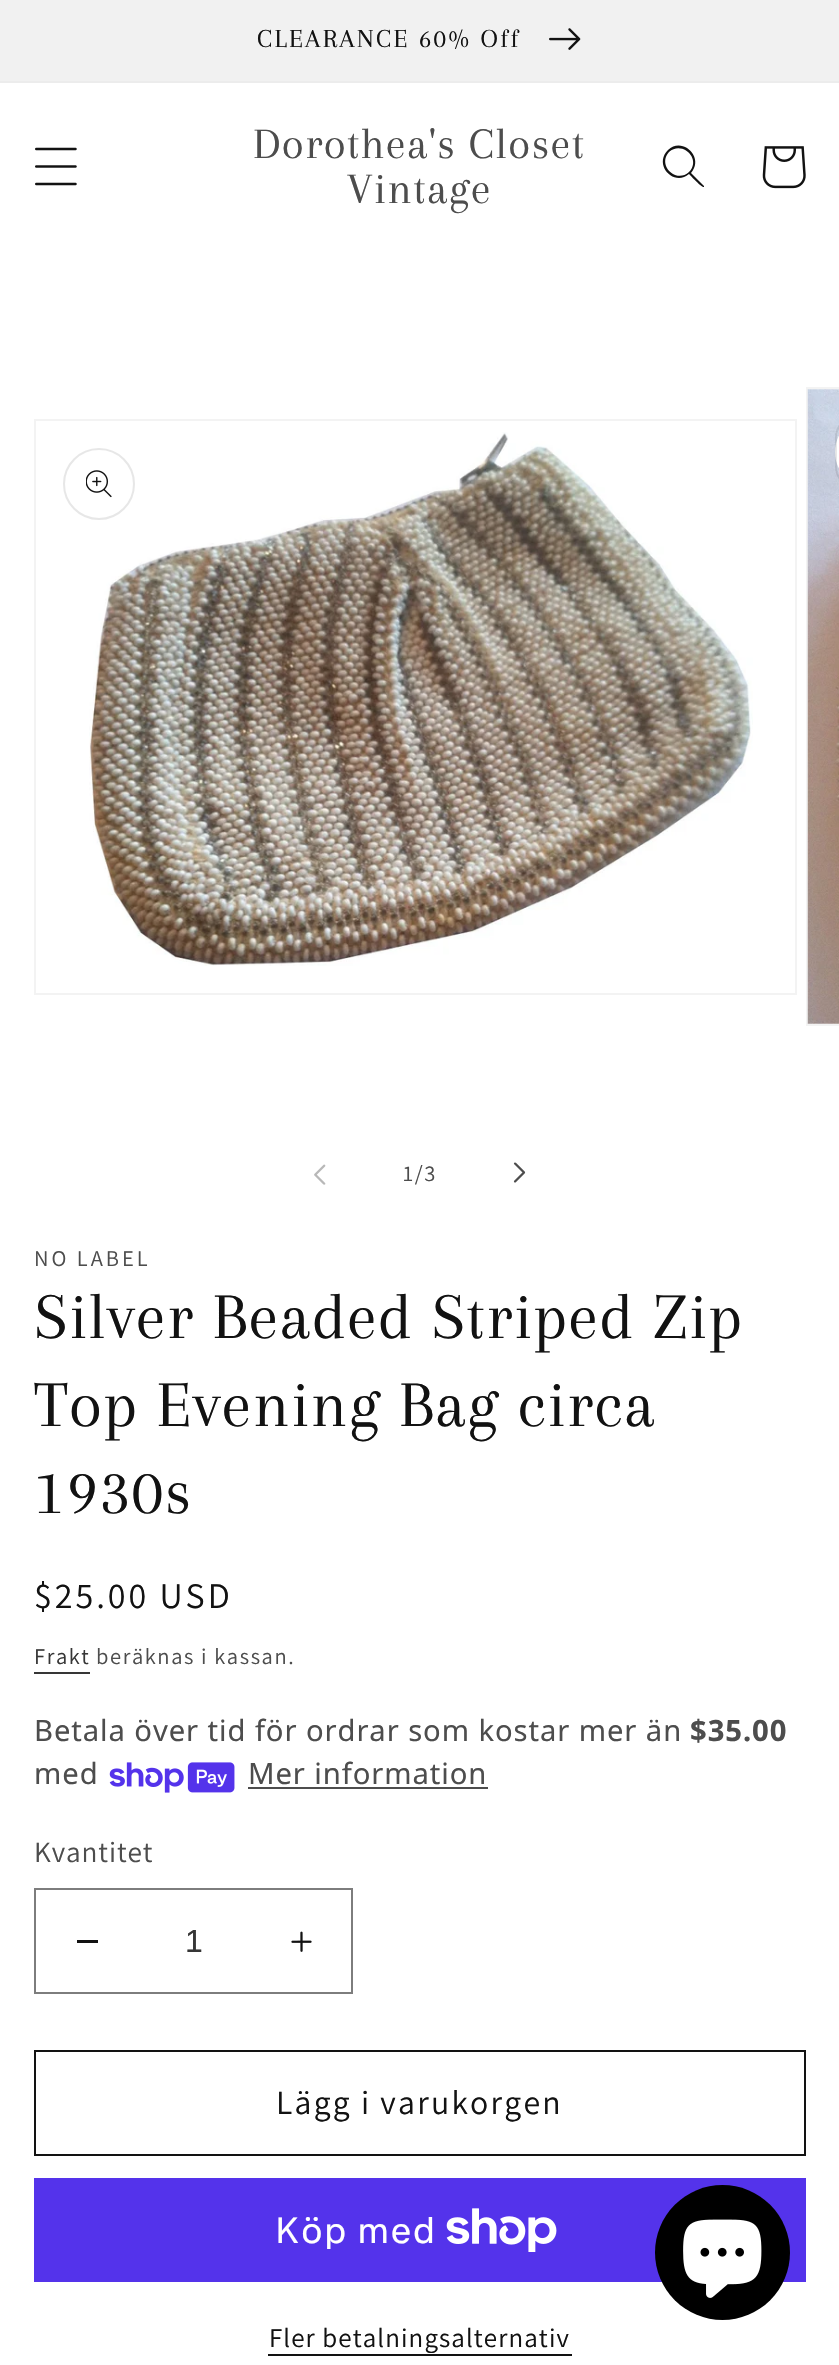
void draw(SkCanvas* canvas) {
    SkPaint paint;
    paint.setAntiAlias(true);
    auto face = [&](const char* family, int weight, float size, bool italic = false) {
        SkFontStyle style(weight, SkFontStyle::kNormal_Width,
            italic ? SkFontStyle::kItalic_Slant : SkFontStyle::kUpright_Slant);
        SkFont result(fontMgr->matchFamilyStyle(family, style), size);
        result.setSubpixel(true);
        return result;
    };
    auto write = [&](const char* s, float x, float y, const SkFont& font, SkColor color) {
        SkPaint ink(SkColor4f::FromColor(color));
        ink.setAntiAlias(true);
        canvas->drawString(s, x, y, font, ink);
    };
    auto writeSpaced = [&](const char* s, float x, float y, const SkFont& font, const SkPaint& ink, float letter, float word) {
        std::vector<SkGlyphID> glyphs(font.countText(s, strlen(s), SkTextEncoding::kUTF8));
        std::vector<float> xs(glyphs.size());
        font.textToGlyphs(s, strlen(s), SkTextEncoding::kUTF8, glyphs);
        font.getXPos(glyphs, xs, x);
        float extra = 0;
        for (size_t i = 0; i < glyphs.size(); i++) {
            xs[i] += extra;
            extra += letter + word * (glyphs[i] == font.unicharToGlyph(' '));
        }
        canvas->drawTextBlob(SkTextBlob::MakeFromPosHGlyphs(glyphs, xs, y, font), 0, 0, ink);
    };
    auto block = [&](float x, float y, float w, float h, SkColor color) {
        SkPaint ink(SkColor4f::FromColor(color));
        ink.setAntiAlias(true);
        canvas->drawRect(SkRect::MakeXYWH(x, y, w, h), ink);
    };
    auto paste = [&](const char* path, float x, float y, float w, float h) {
        auto image = SkImages::DeferredFromEncodedData(SkData::MakeFromFileName(path));
        canvas->drawImageRect(image, SkRect::MakeXYWH(x, y, w, h), SkSamplingOptions());
    };
    canvas->clear(SK_ColorWHITE);
    block(0, 81, 839, 2, SkColorSetRGB(236, 236, 236));
    block(0, 0, 839, 81, SkColorSetRGB(241, 241, 241));
    auto kFont1 = face("Arapey", 400, 27);
    paint.setColor(SkColorSetRGB(18, 18, 18));
    writeSpaced("CLEARANCE 60% Off", 257, 47, kFont1, paint, 2.25f, 0);
    paste("pic1.png", 549, 28, 32, 22);
    paste("pic2.png", 35, 147, 42, 39);
    auto kFont2 = face("Arapey", 400, 45);
    paint.setColor(SkColorSetRGB(77, 77, 77));
    writeSpaced("Dorothea's Closet", 253, 158, kFont2, paint, 1.35f, 0);
    writeSpaced("Vintage", 347, 203, kFont2, paint, 1.35f, 0);
    paint.setColor(SkColorSetRGB(18, 18, 18));
    canvas->drawPath(SkPathBuilder(SkPathFillType::kEvenOdd).moveTo(689, 172).cubicTo(676, 184, 657, 165, 669, 152).cubicTo(682, 140, 702, 159, 689, 172).close().moveTo(689, 174).cubicTo(674, 187, 653, 165, 668, 150).cubicTo(682, 136, 705, 157, 691, 173).lineTo(704, 186).lineTo(704, 187).cubicTo(702, 188, 691, 176, 689, 174).close().detach(), paint);
    paste("pic3.png", 762, 146, 44, 43);
    paint.setStyle(SkPaint::kStroke_Style);
    paint.setStrokeWidth(2);
    paint.setColor(SkColorSetRGB(243, 243, 243));
    canvas->drawRect(SkRect::MakeXYWH(35, 420, 761, 574), paint);
    paste("pic4.png", 89, 432, 664, 534);
    paint.setColor(SkColorSetRGB(231, 231, 231));
    canvas->drawCircle(99, 484, 35, paint);
    paste("pic5.png", 86, 470, 26, 28);
    paint.setColor(SkColorSetRGB(243, 243, 243));
    canvas->drawRect(SkRect::MakeXYWH(807, 388, 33, 637), paint);
    paste("pic6.png", 807, 389, 32, 635);
    paint.setStyle(SkPaint::kFill_Style);
    paint.setColor(SK_ColorWHITE);
    canvas->drawPath(SkPathBuilder().moveTo(871, 416).lineTo(839, 416).lineTo(839, 488).lineTo(871, 488).cubicTo(851, 488, 835, 472, 835, 452).cubicTo(835, 432, 851, 416, 871, 416).close().detach(), paint);
    paint.setStyle(SkPaint::kStroke_Style);
    paint.setColor(SkColorSetARGB(26, 18, 18, 18));
    canvas->drawRoundRect(SkRect::MakeXYWH(836, 417, 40, 70), 35, 35, paint);
    paste("pic7.png", 314, 1164, 12, 21);
    auto kFont3 = face("Assistant", 400, 22.5f);
    paint.setStyle(SkPaint::kFill_Style);
    paint.setColor(SkColorSetRGB(77, 77, 77));
    writeSpaced("1/3", 403, 1181, kFont3, paint, 1.6f, 0);
    paste("pic8.png", 513, 1162, 13, 21);
    writeSpaced("NO LABEL", 34, 1266, kFont3, paint, 3, 0);
    auto kFont4 = face("Arapey", 400, 67.5f);
    paint.setColor(SkColorSetRGB(18, 18, 18));
    writeSpaced("Silver Beaded Striped Zip", 34, 1338, kFont4, paint, 1.35f, 0);
    writeSpaced("Top Evening Bag circa", 34, 1426, kFont4, paint, 1.35f, 0);
    writeSpaced("1930s", 34, 1513, kFont4, paint, 1.35f, 0);
    auto kFont5 = face("Assistant", 400, 36);
    writeSpaced("$25.00 USD", 34, 1608, kFont5, paint, 3, 0);
    paint.setColor(SkColorSetRGB(54, 54, 54));
    writeSpaced("Frakt", 34, 1664, kFont3, paint, 1.6f, 0);
    block(34, 1672, 56, 2, SkColorSetRGB(54, 54, 54));
    paint.setColor(SkColorSetRGB(77, 77, 77));
    writeSpaced("beräknas i kassan.", 96, 1664, kFont3, paint, 1.6f, 0);
    auto kFont6 = face("Noto Sans", 400, 29.25f);
    writeSpaced("Betala över tid för ordrar som kostar mer än", 34, 1741, kFont6, paint, 0.9f, 0);
    auto kFont7 = face("Noto Sans", 700, 29.25f);
    writeSpaced("$35.00", 690, 1741, kFont7, paint, 0.9f, 0);
    writeSpaced("med", 34, 1784, kFont6, paint, 0.9f, 0);
    paste("pic9.png", 109, 1762, 126, 31);
    writeSpaced("Mer information", 248, 1784, kFont6, paint, 0.9f, 0);
    block(248, 1787, 240, 2, SkColorSetRGB(77, 77, 77));
    auto kFont8 = face("Assistant", 400, 29.25f);
    writeSpaced("Kvantitet", 34, 1862, kFont8, paint, 0.9f, 0);
    block(77, 1940, 21, 3, SkColorSetRGB(18, 18, 18));
    paste("pic10.png", 291, 1931, 21, 21);
    paint.setStyle(SkPaint::kStroke_Style);
    paint.setColor(SkColorSetRGB(125, 125, 125));
    canvas->drawRect(SkRect::MakeXYWH(35, 1889, 317, 104), paint);
    auto kFont9 = face("Liberation Sans", 400, 32);
    write("1", 185, 1952, kFont9, SkColorSetRGB(54, 54, 54));
    paint.setColor(SkColorSetRGB(18, 18, 18));
    canvas->drawRect(SkRect::MakeXYWH(35, 2051, 770, 104), paint);
    auto kFont10 = face("Assistant", 400, 33.75f);
    paint.setStyle(SkPaint::kFill_Style);
    writeSpaced("Lägg i varukorgen", 276, 2114, kFont10, paint, 2.25f, 0);
    block(34, 2178, 772, 104, SkColorSetRGB(84, 51, 235));
    auto kFont11 = face("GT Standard", 400, 36);
    paint.setColor(SK_ColorWHITE);
    writeSpaced("Köp med", 275, 2243, kFont11, paint, 1.35f, 0);
    paste("pic11.png", 446, 2208, 111, 44);
    auto kFont12 = face("Assistant", 400, 27);
    paint.setColor(SkColorSetRGB(18, 18, 18));
    writeSpaced("Fler betalningsalternativ", 269, 2347, kFont12, paint, 1.1f, 0);
    block(268, 2354, 304, 2, SkColorSetRGB(18, 18, 18));
    paint.setColor(SK_ColorBLACK);
    canvas->drawCircle(722.5f, 2252.5f, 67.5f, paint);
    paste("pic12.png", 683, 2219, 79, 79);
}
